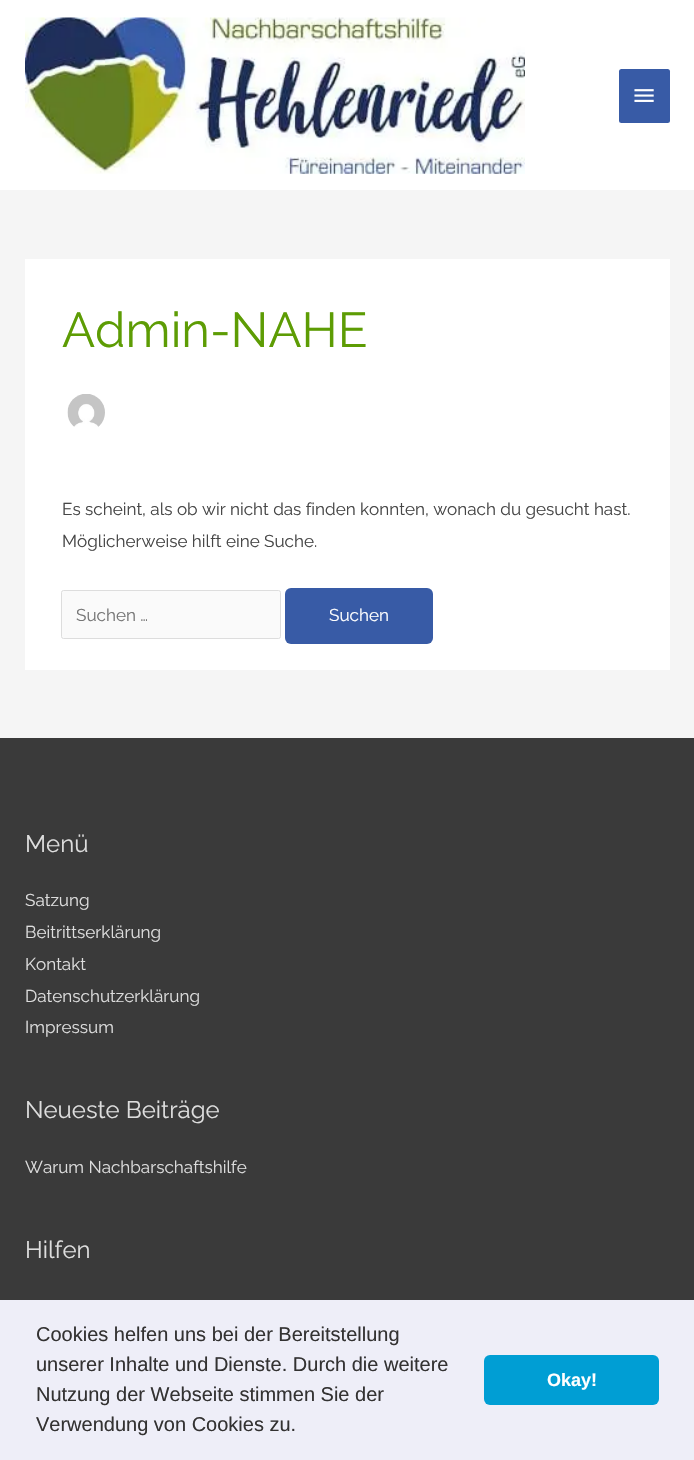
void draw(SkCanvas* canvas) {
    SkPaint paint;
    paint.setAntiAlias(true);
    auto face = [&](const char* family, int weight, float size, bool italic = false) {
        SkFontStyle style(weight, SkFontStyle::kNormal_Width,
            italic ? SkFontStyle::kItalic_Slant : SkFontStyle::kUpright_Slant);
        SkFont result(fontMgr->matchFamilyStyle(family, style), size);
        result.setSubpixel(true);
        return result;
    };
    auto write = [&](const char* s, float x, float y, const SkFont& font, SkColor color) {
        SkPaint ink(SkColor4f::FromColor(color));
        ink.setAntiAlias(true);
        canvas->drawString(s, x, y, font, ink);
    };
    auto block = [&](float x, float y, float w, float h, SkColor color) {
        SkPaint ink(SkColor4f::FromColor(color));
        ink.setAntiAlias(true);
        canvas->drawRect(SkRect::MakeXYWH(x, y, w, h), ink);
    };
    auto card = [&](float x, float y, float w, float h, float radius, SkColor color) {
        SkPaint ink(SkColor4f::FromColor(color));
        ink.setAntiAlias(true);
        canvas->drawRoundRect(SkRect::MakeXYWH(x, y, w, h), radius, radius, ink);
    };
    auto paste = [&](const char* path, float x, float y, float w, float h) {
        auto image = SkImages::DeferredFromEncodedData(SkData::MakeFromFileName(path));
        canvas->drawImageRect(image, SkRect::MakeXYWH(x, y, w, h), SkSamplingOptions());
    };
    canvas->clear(SkColorSetRGB(245, 245, 245));
    block(0, 0, 694, 190, SK_ColorWHITE);
    paste("pic1.png", 25, 17, 500, 157);
    card(619, 69, 51, 54, 2.5f, SkColorSetRGB(56, 91, 166));
    paste("pic2.png", 634, 89, 20, 13);
    block(25, 259, 645, 411, SK_ColorWHITE);
    auto kFont1 = face("Raleway", 100, 49);
    write("Admin-NAHE", 62, 347, kFont1, SkColorSetRGB(93, 156, 4));
    paste("pic3.png", 67, 394, 38, 33);
    auto kFont2 = face("Raleway", 100, 17.1f);
    write("Es scheint, als ob wir nicht das finden konnten, wonach du gesucht hast.", 62, 515, kFont2, SkColorSetRGB(70, 70, 70));
    write("Möglicherweise hilft eine Suche.", 62, 547, kFont2, SkColorSetRGB(70, 70, 70));
    paint.setColor(SkColorSetRGB(250, 250, 250));
    canvas->drawRoundRect(SkRect::MakeXYWH(61.5f, 590.5f, 219, 48), 2, 2, paint);
    paint.setStyle(SkPaint::kStroke_Style);
    paint.setStrokeWidth(1);
    paint.setColor(SkColorSetRGB(221, 221, 221));
    canvas->drawRoundRect(SkRect::MakeXYWH(61.5f, 590.5f, 219, 48), 2, 2, paint);
    write("Suchen …", 76, 621, kFont2, SkColorSetRGB(117, 117, 117));
    card(285, 588, 148, 56, 6, SkColorSetRGB(56, 91, 166));
    write("Suchen", 329, 621, kFont2, SK_ColorWHITE);
    block(0, 738, 694, 562, SkColorSetRGB(58, 58, 58));
    auto kFont3 = face("Raleway", 100, 24);
    write("Menü", 25, 852, kFont3, SkColorSetRGB(221, 221, 221));
    write("Satzung", 25, 906, kFont2, SkColorSetRGB(221, 221, 221));
    write("Beitrittserklärung", 25, 938, kFont2, SkColorSetRGB(221, 221, 221));
    write("Kontakt", 25, 970, kFont2, SkColorSetRGB(221, 221, 221));
    write("Datenschutzerklärung", 25, 1002, kFont2, SkColorSetRGB(221, 221, 221));
    write("Impressum", 25, 1033, kFont2, SkColorSetRGB(221, 221, 221));
    write("Neueste Beiträge", 25, 1118, kFont3, SkColorSetRGB(221, 221, 221));
    write("Warum Nachbarschaftshilfe", 25, 1173, kFont2, SkColorSetRGB(221, 221, 221));
    write("Hilfen", 25, 1258, kFont3, SkColorSetRGB(221, 221, 221));
    block(0, 1300, 694, 160, SkColorSetRGB(238, 238, 248));
    auto kFont4 = face("Liberation Sans", 400, 20);
    write("Cookies helfen uns bei der Bereitstellung", 36, 1341, kFont4, SkColorSetRGB(51, 50, 50));
    write("unserer Inhalte und Dienste. Durch die weitere", 36, 1371, kFont4, SkColorSetRGB(51, 50, 50));
    write("Nutzung der Webseite stimmen Sie der", 36, 1401, kFont4, SkColorSetRGB(51, 50, 50));
    write("Verwendung von Cookies zu.", 36, 1431, kFont4, SkColorSetRGB(51, 50, 50));
    card(484, 1355, 175, 50, 6, SkColorSetRGB(0, 158, 212));
    auto kFont5 = face("Liberation Sans", 700, 18);
    write("Okay!", 547, 1386, kFont5, SK_ColorWHITE);
}
